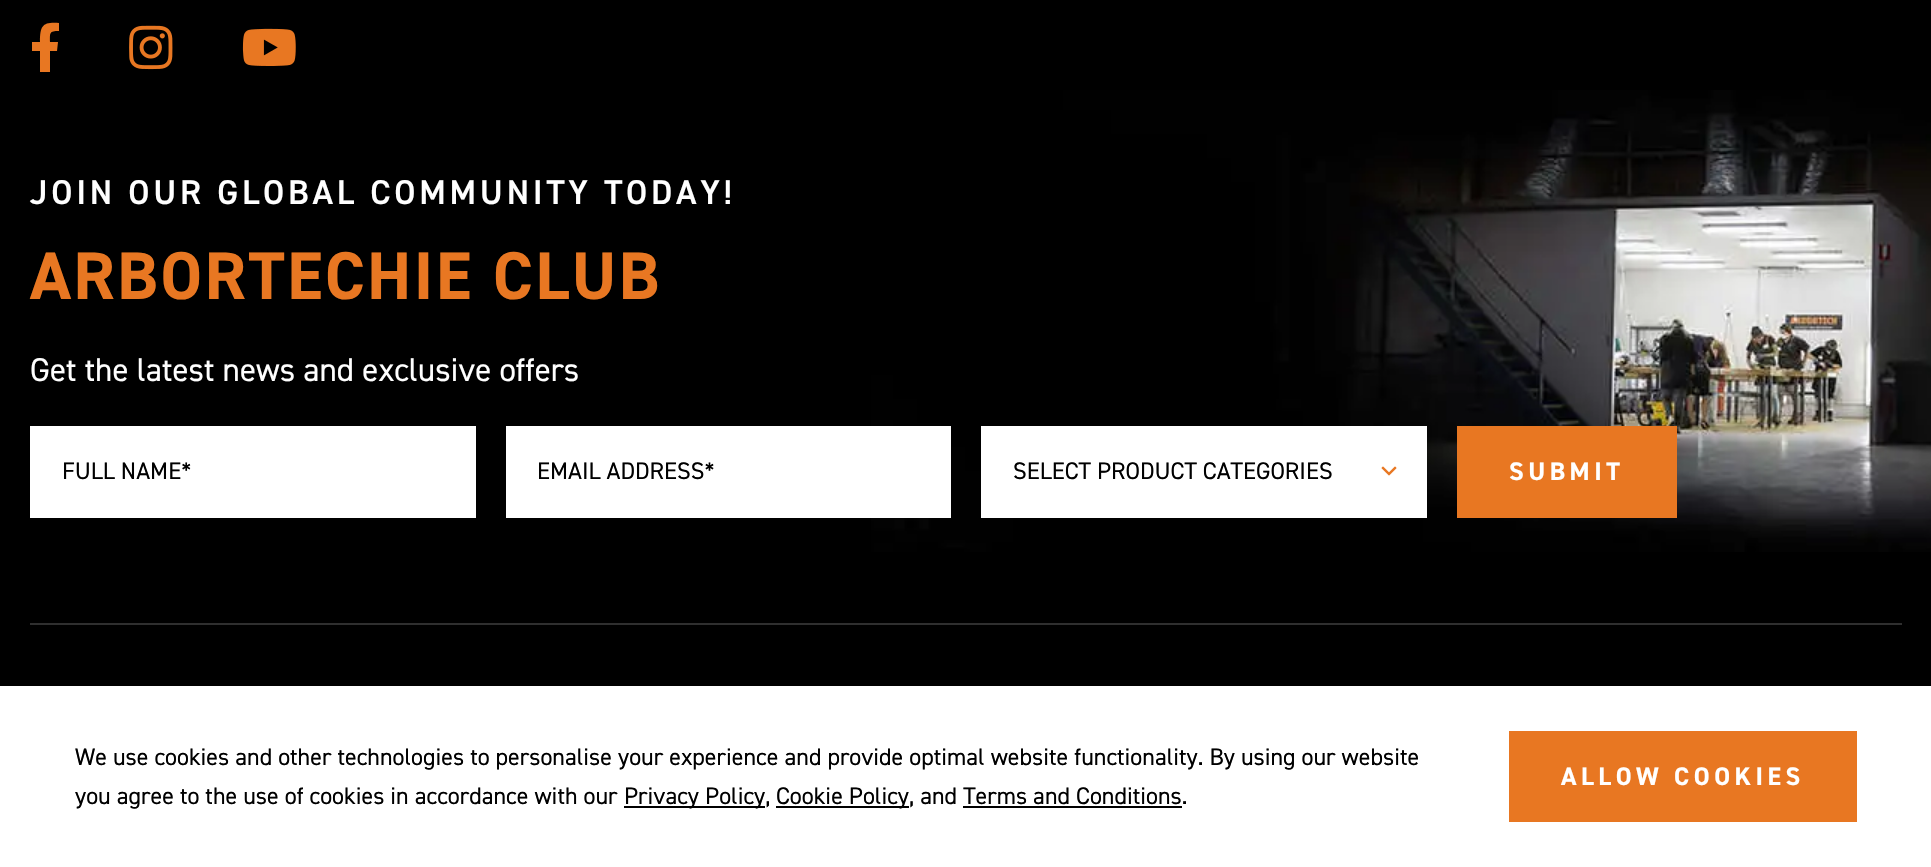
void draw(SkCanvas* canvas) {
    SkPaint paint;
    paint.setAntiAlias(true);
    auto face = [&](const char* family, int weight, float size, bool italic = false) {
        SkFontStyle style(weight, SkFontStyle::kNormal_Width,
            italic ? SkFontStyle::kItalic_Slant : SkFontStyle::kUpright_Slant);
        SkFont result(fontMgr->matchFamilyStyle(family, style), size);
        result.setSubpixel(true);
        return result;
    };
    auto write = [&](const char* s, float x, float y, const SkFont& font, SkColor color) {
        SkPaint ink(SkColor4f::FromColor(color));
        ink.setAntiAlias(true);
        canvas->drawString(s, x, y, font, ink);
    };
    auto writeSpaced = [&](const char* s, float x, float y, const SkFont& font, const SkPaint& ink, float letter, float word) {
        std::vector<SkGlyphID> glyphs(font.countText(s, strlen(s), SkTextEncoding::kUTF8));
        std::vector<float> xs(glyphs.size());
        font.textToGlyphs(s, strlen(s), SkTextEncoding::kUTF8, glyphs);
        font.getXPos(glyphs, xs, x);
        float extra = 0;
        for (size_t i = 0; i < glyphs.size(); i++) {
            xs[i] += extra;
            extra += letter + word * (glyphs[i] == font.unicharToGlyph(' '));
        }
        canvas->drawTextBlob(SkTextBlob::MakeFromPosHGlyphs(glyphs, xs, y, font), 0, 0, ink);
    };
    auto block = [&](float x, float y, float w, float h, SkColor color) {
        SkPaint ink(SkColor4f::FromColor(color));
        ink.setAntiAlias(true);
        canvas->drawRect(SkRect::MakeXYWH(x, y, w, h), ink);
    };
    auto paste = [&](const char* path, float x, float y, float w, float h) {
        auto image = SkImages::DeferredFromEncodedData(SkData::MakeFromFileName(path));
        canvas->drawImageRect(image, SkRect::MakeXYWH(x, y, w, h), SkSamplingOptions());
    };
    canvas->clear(SK_ColorBLACK);
    paste("pic1.png", 871, 90, 1060, 462);
    block(30, 623, 1872, 2, SkColorSetRGB(47, 47, 47));
    paint.setColor(SkColorSetRGB(232, 119, 34));
    canvas->drawPath(SkPathBuilder().moveTo(57, 51).lineTo(50, 51).lineTo(50, 72).lineTo(40, 72).lineTo(40, 51).lineTo(32, 51).lineTo(32, 42).lineTo(40, 42).cubicTo(40, 25, 43, 22, 59, 23).lineTo(59, 31).cubicTo(49, 31, 50, 33, 50, 42).lineTo(58, 42).close().detach(), paint);
    paste("pic2.png", 129, 25, 44, 45);
    paste("pic3.png", 242, 28, 54, 38);
    auto kFont1 = face("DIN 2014", 600, 34.5f);
    paint.setColor(SK_ColorWHITE);
    writeSpaced("JOIN OUR GLOBAL COMMUNITY TODAY!", 30, 204, kFont1, paint, 3.75f, 0);
    auto kFont2 = face("DIN 2014", 700, 67.5f);
    paint.setColor(SkColorSetRGB(232, 119, 34));
    writeSpaced("ARBORTECHIE CLUB", 30, 299, kFont2, paint, 2.25f, 0);
    auto kFont3 = face("DIN 2014", 400, 33);
    write("Get the latest news and exclusive offers", 30, 381, kFont3, SK_ColorWHITE);
    block(30, 426, 446, 92, SK_ColorWHITE);
    auto kFont4 = face("DIN 2014", 400, 24);
    write("FULL NAME*", 62, 479, kFont4, SK_ColorBLACK);
    block(506, 426, 445, 92, SK_ColorWHITE);
    write("EMAIL ADDRESS*", 537, 479, kFont4, SK_ColorBLACK);
    block(981, 426, 446, 92, SK_ColorWHITE);
    write("SELECT PRODUCT CATEGORIES", 1013, 479, kFont4, SK_ColorBLACK);
    paste("pic4.png", 1381, 466, 16, 10);
    block(1457, 426, 220, 92, SkColorSetRGB(232, 119, 34));
    auto kFont5 = face("DIN 2014", 700, 25.5f);
    paint.setColor(SK_ColorWHITE);
    writeSpaced("SUBMIT", 1509, 480, kFont5, paint, 4.5f, 0);
    block(0, 686, 1931, 181, SK_ColorWHITE);
    write("We use cookies and other technologies to personalise your experience and provide optimal website functionality. By using our website", 75, 765, kFont4, SK_ColorBLACK);
    write("you agree to the use of cookies in accordance with our", 75, 804, kFont4, SK_ColorBLACK);
    block(624, 806, 141, 2, SK_ColorBLACK);
    write("Privacy Policy,", 624, 804, kFont4, SK_ColorBLACK);
    block(776, 806, 133, 2, SK_ColorBLACK);
    write("Cookie Policy, and Terms and Conditions.", 776, 804, kFont4, SK_ColorBLACK);
    block(963, 806, 219, 2, SK_ColorBLACK);
    block(1509, 731, 348, 91, SkColorSetRGB(232, 119, 34));
    writeSpaced("ALLOW COOKIES", 1561, 785, kFont5, paint, 4.5f, 0);
}
